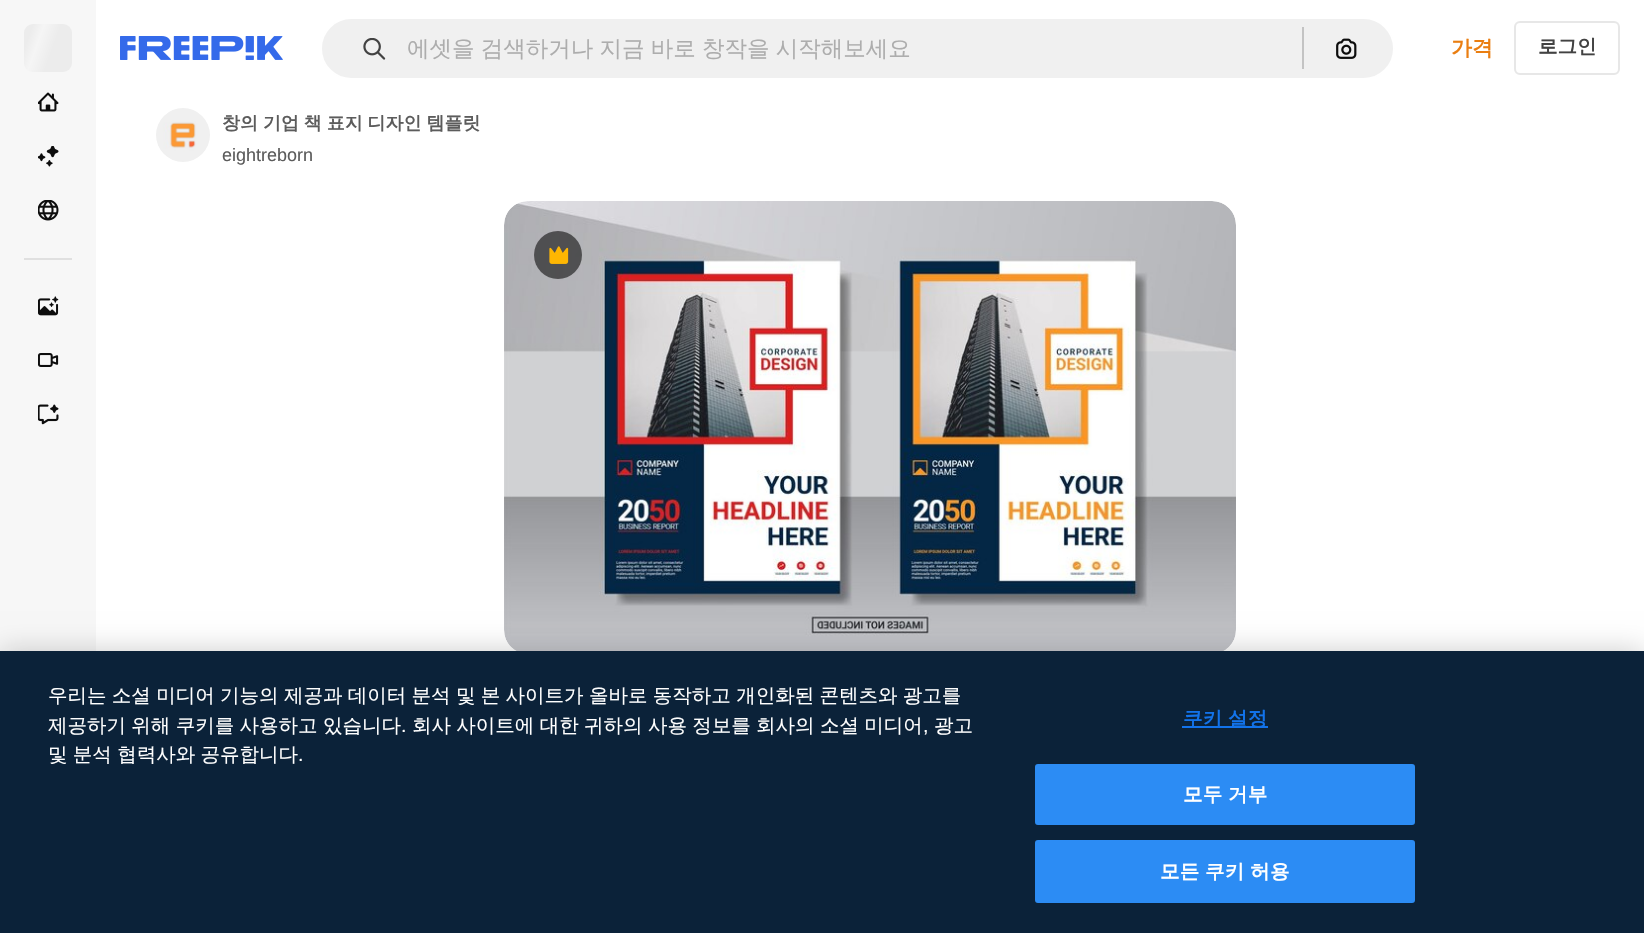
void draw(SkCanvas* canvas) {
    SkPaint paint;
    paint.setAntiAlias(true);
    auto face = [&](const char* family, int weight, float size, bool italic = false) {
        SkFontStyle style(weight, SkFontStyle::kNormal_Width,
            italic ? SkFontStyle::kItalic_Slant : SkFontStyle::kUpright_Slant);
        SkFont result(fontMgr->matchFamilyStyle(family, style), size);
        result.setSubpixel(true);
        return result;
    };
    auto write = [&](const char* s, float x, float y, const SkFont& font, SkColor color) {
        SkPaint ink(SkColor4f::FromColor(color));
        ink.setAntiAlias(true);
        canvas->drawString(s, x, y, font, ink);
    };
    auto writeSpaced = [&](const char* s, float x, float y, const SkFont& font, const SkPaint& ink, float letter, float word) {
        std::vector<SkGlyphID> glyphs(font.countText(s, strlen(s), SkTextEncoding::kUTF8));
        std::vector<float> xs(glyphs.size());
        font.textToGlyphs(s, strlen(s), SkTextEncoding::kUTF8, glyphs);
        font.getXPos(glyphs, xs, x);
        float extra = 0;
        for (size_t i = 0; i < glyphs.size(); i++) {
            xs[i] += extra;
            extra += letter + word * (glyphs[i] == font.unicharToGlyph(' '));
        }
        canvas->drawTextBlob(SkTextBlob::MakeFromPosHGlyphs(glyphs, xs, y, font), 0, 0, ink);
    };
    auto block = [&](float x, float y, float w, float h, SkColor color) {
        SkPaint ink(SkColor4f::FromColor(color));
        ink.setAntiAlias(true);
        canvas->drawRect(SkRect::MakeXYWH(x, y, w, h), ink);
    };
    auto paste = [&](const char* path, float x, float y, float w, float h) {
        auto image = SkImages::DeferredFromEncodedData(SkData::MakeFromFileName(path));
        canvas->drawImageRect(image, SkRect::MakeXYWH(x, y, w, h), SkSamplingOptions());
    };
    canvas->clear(SK_ColorWHITE);
    block(0, 0, 96, 651, SkColorSetRGB(247, 247, 247));
    {
        const SkColor colors[] = {SkColorSetRGB(236, 236, 236), SkColorSetRGB(245, 245, 245), SkColorSetRGB(236, 236, 236)};
        const float stops[] = {0.08f, 0.18f, 0.33f};
        const SkPoint ends[] = {{22, 30}, {122, 66}};
        paint.setShader(SkGradientShader::MakeLinear(ends, colors, stops, 3, SkTileMode::kClamp));
        paint.setAlpha(255);
    }
    canvas->drawRoundRect(SkRect::MakeXYWH(24, 24, 48, 48), 9, 9, paint);
    paste("pic1.png", 38, 92, 21, 20);
    paste("pic2.png", 38, 146, 21, 21);
    paste("pic3.png", 38, 200, 21, 21);
    block(24, 258, 48, 2, SkColorSetRGB(224, 224, 224));
    paste("pic4.png", 38, 296, 21, 20);
    paste("pic5.png", 38, 353, 21, 14);
    paste("pic6.png", 38, 404, 21, 21);
    paste("pic7.png", 120, 36, 163, 24);
    paint.setShader(nullptr);
    paint.setColor(SkColorSetRGB(240, 240, 240));
    canvas->drawRoundRect(SkRect::MakeXYWH(321, 18, 1073, 61), 30.5f, 30.5f, paint);
    paint.setStyle(SkPaint::kStroke_Style);
    paint.setStrokeWidth(2);
    paint.setColor(SK_ColorWHITE);
    canvas->drawRoundRect(SkRect::MakeXYWH(321, 18, 1073, 61), 30.5f, 30.5f, paint);
    paste("pic8.png", 363, 38, 23, 22);
    auto kFont1 = face("WenQuanYi Zen Hei", 500, 22.5f);
    paint.setStyle(SkPaint::kFill_Style);
    paint.setColor(SkColorSetRGB(173, 173, 173));
    writeSpaced("에셋을 검색하거나 지금 바로 창작을 시작해보세요", 407, 56, kFont1, paint, 0, -0.5f);
    block(1302, 27, 2, 42, SkColorSetRGB(195, 195, 195));
    paste("pic9.png", 1336, 38, 21, 21);
    auto kFont2 = face("WenQuanYi Zen Hei", 700, 21);
    write("가격", 1451, 55, kFont2, SkColorSetRGB(234, 126, 17));
    paint.setStyle(SkPaint::kStroke_Style);
    paint.setColor(SkColorSetRGB(231, 231, 231));
    canvas->drawRoundRect(SkRect::MakeXYWH(1515, 22, 104, 52), 5, 5, paint);
    auto kFont3 = face("WenQuanYi Zen Hei", 700, 19.5f);
    write("로그인", 1538, 53, kFont3, SkColorSetRGB(66, 66, 66));
    paste("pic10.png", 156, 108, 54, 54);
    auto kFont4 = face("WenQuanYi Zen Hei", 700, 18);
    paint.setStyle(SkPaint::kFill_Style);
    paint.setColor(SkColorSetRGB(92, 92, 92));
    writeSpaced("창의 기업 책 표지 디자인 템플릿", 222, 129, kFont4, paint, 0, -0.5f);
    auto kFont5 = face("Liberation Sans", 400, 18);
    write("eightreborn", 222, 161, kFont5, SkColorSetRGB(92, 92, 92));
    paste("pic11.png", 504, 201, 732, 450);
    paint.setColor(SkColorSetARGB(153, 13, 13, 13));
    canvas->drawCircle(558, 255, 24, paint);
    paste("pic12.png", 549, 246, 20, 18);
    paint.setColor(SkColorSetARGB(51, 0, 0, 0));
    paint.setMaskFilter(SkMaskFilter::MakeBlur(kNormal_SkBlurStyle, 13.5f));
    canvas->drawRect(SkRect::MakeXYWH(0, 651, 1644, 282), paint);
    paint.setMaskFilter(nullptr);
    block(0, 651, 1644, 282, SkColorSetRGB(11, 34, 57));
    auto kFont6 = face("WenQuanYi Zen Hei", 500, 19.5f);
    paint.setColor(SK_ColorWHITE);
    writeSpaced("우리는 소셜 미디어 기능의 제공과 데이터 분석 및 본 사이트가 올바로 동작하고 개인화된 콘텐츠와 광고를", 48, 702, kFont6, paint, 0, -0.5f);
    writeSpaced("제공하기 위해 쿠키를 사용하고 있습니다", 48, 732, kFont6, paint, 0, -0.5f);
    auto kFont7 = face("Liberation Sans", 400, 19.5f);
    write(".", 401, 732, kFont7, SK_ColorWHITE);
    writeSpaced("회사 사이트에 대한 귀하의 사용 정보를 회사의 소셜 미디어", 412, 732, kFont6, paint, 0, -0.5f);
    write(",", 923, 732, kFont7, SK_ColorWHITE);
    write("광고", 934, 732, kFont6, SK_ColorWHITE);
    writeSpaced("및 분석 협력사와 공유합니다", 48, 761, kFont6, paint, 0, -0.5f);
    write(".", 298, 761, kFont7, SK_ColorWHITE);
    block(1182, 726, 86, 2, SkColorSetRGB(18, 115, 235));
    paint.setColor(SkColorSetRGB(18, 115, 235));
    writeSpaced("쿠키 설정", 1183, 725, kFont3, paint, 0.25f, -0.5f);
    paint.setColor(SkColorSetRGB(44, 140, 244));
    canvas->drawRoundRect(SkRect::MakeXYWH(1036, 765, 378, 59), 2, 2, paint);
    paint.setStyle(SkPaint::kStroke_Style);
    canvas->drawRoundRect(SkRect::MakeXYWH(1036, 765, 378, 59), 2, 2, paint);
    paint.setStyle(SkPaint::kFill_Style);
    paint.setColor(SK_ColorWHITE);
    writeSpaced("모두 거부", 1183, 801, kFont3, paint, 0.25f, -0.5f);
    paint.setColor(SkColorSetRGB(44, 140, 244));
    canvas->drawRoundRect(SkRect::MakeXYWH(1036, 841, 378, 61), 2, 2, paint);
    paint.setStyle(SkPaint::kStroke_Style);
    canvas->drawRoundRect(SkRect::MakeXYWH(1036, 841, 378, 61), 2, 2, paint);
    paint.setStyle(SkPaint::kFill_Style);
    paint.setColor(SK_ColorWHITE);
    writeSpaced("모든 쿠키 허용", 1160, 878, kFont3, paint, 0.25f, -0.5f);
}
